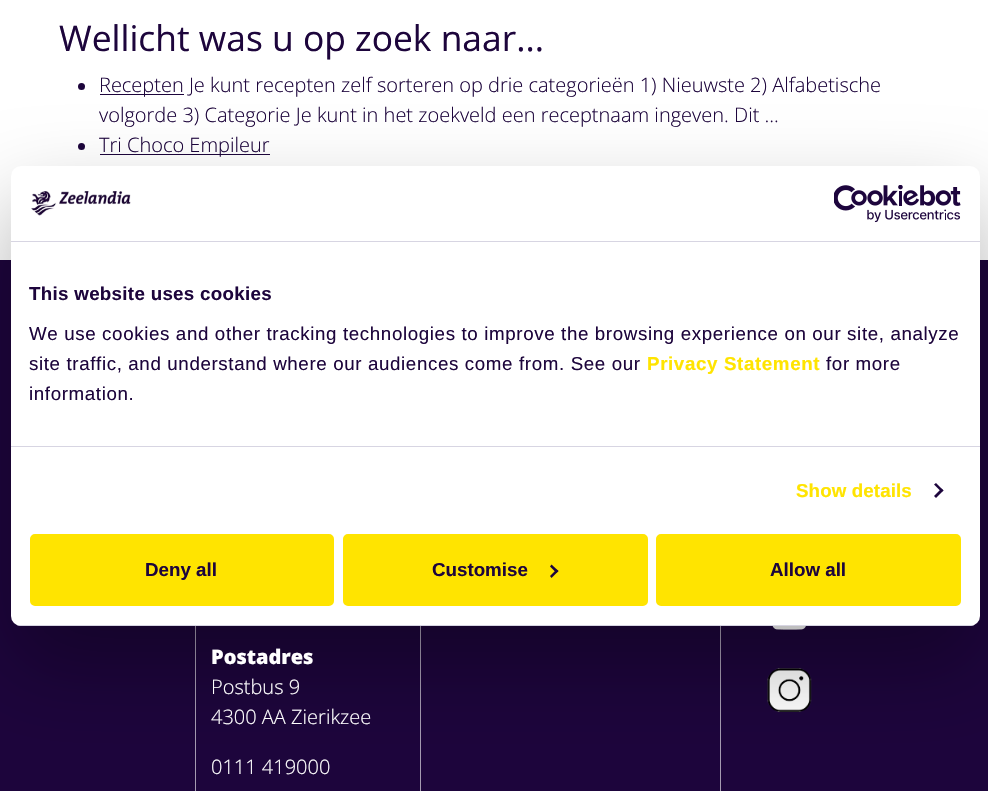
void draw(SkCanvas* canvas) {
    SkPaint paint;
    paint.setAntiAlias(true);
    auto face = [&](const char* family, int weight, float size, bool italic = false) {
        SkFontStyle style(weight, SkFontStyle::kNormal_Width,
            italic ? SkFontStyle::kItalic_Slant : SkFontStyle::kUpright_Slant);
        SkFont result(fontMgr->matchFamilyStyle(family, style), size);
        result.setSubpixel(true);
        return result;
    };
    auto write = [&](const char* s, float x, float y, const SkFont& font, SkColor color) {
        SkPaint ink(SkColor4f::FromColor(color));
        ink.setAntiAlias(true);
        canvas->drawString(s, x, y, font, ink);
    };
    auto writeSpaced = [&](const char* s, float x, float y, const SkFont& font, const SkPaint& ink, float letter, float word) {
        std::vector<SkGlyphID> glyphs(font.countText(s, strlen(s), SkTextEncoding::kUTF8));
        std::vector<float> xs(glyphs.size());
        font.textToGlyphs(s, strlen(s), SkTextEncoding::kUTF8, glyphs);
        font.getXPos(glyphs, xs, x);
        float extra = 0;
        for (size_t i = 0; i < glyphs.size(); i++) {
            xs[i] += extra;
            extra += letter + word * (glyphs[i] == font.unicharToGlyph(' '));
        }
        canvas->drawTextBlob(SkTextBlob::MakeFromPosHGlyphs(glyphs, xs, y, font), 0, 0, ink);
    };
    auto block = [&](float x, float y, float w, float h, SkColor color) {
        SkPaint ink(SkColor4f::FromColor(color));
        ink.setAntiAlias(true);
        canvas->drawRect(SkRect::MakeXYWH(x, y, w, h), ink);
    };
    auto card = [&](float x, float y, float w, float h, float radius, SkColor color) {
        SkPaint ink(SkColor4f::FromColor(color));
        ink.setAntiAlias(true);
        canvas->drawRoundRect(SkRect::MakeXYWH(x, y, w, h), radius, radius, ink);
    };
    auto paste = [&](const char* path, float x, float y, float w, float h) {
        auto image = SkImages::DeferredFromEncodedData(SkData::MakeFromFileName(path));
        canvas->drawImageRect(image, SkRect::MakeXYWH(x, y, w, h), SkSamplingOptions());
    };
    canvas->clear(SK_ColorWHITE);
    auto kFont1 = face("Open Sans", 400, 35.4f);
    write("Wellicht was u op zoek naar...", 59, 51, kFont1, SkColorSetRGB(29, 5, 60));
    paint.setColor(SkColorSetRGB(29, 5, 60));
    canvas->drawCircle(81.5f, 86.5f, 3.5f, paint);
    block(100, 94, 84, 1, SkColorSetRGB(29, 5, 60));
    auto kFont2 = face("Open Sans", 300, 20);
    write("Recepten Je kunt recepten zelf sorteren op drie categorieën 1) Nieuwste 2) Alfabetische", 99, 92, kFont2, SkColorSetRGB(29, 5, 60));
    write("volgorde 3) Categorie Je kunt in het zoekveld een receptnaam ingeven. Dit ...", 99, 122, kFont2, SkColorSetRGB(29, 5, 60));
    canvas->drawCircle(81.5f, 146.5f, 3.5f, paint);
    block(100, 154, 170, 1, SkColorSetRGB(29, 5, 60));
    write("Tri Choco Empileur", 99, 152, kFont2, SkColorSetRGB(29, 5, 60));
    block(0, 260, 988, 531, SkColorSetRGB(29, 5, 60));
    block(195, 626, 1, 165, SkColorSetRGB(165, 155, 177));
    block(420, 626, 1, 165, SkColorSetRGB(165, 155, 177));
    block(720, 626, 1, 165, SkColorSetRGB(165, 155, 177));
    paste("pic3.png", 772, 626, 34, 4);
    paste("pic4.png", 767, 668, 45, 44);
    paint.setColor(SkColorSetARGB(77, 0, 0, 0));
    paint.setMaskFilter(SkMaskFilter::MakeBlur(kNormal_SkBlurStyle, 42.5f));
    canvas->drawRoundRect(SkRect::MakeXYWH(11, 206, 969, 460), 10, 10, paint);
    paint.setMaskFilter(nullptr);
    card(11, 166, 969, 460, 10, SK_ColorWHITE);
    block(11, 241, 969, 1, SkColorSetRGB(215, 213, 226));
    paste("pic1.png", 31, 191, 100, 25);
    paste("pic2.png", 834, 185, 127, 38);
    block(11, 446, 969, 1, SkColorSetRGB(215, 213, 226));
    auto kFont3 = face("Liberation Sans", 700, 18.75f);
    paint.setColor(SkColorSetRGB(29, 5, 60));
    writeSpaced("This website uses cookies", 29, 300, kFont3, paint, 0.3f, 0);
    auto kFont4 = face("Liberation Sans", 400, 18.75f);
    writeSpaced("We use cookies and other tracking technologies to improve the browsing experience on our site, analyze", 29, 340, kFont4, paint, 0.62f, 0);
    writeSpaced("site traffic, and understand where our audiences come from. See our", 29, 370, kFont4, paint, 0.62f, 0);
    paint.setColor(SkColorSetRGB(255, 228, 0));
    writeSpaced("Privacy Statement", 647, 370, kFont3, paint, 0.62f, 0);
    paint.setColor(SkColorSetRGB(29, 5, 60));
    writeSpaced("for more", 826, 370, kFont4, paint, 0.62f, 0);
    writeSpaced("information.", 29, 400, kFont4, paint, 0.62f, 0);
    paint.setColor(SkColorSetRGB(255, 228, 0));
    writeSpaced("Show details", 796, 497, kFont3, paint, 0.1f, 0);
    paint.setColor(SkColorSetRGB(29, 5, 61));
    canvas->drawPath(SkPathBuilder().moveTo(936, 483).lineTo(943.5f, 490.5f).lineTo(941.5f, 492).lineTo(934, 484.5f).close().detach(), paint);
    canvas->drawPath(SkPathBuilder().moveTo(941.5f, 488.5f).lineTo(943.5f, 490.5f).lineTo(936, 498).lineTo(934, 496).close().detach(), paint);
    canvas->save();
    canvas->clipPath(SkPathBuilder().moveTo(21, 166).lineTo(970, 166).cubicTo(975.5f, 166, 980, 170.5f, 980, 176).lineTo(980, 616).cubicTo(980, 621.5f, 975.5f, 626, 970, 626).lineTo(21, 626).cubicTo(15.5f, 626, 11, 621.5f, 11, 616).lineTo(11, 176).cubicTo(11, 170.5f, 15.5f, 166, 21, 166).close().detach(), true);
    block(11, 625, 969, 1, SkColorSetRGB(215, 213, 226));
    canvas->restore();
    paint.setColor(SkColorSetRGB(255, 228, 0));
    canvas->drawRoundRect(SkRect::MakeXYWH(31.5f, 535.5f, 301, 69), 3.5f, 3.5f, paint);
    paint.setStyle(SkPaint::kStroke_Style);
    paint.setStrokeWidth(3);
    canvas->drawRoundRect(SkRect::MakeXYWH(31.5f, 535.5f, 301, 69), 3.5f, 3.5f, paint);
    write("Deny all", 145, 576, kFont3, SkColorSetRGB(29, 5, 60));
    paint.setStyle(SkPaint::kFill_Style);
    canvas->drawRoundRect(SkRect::MakeXYWH(344.5f, 535.5f, 302, 69), 3.5f, 3.5f, paint);
    paint.setStyle(SkPaint::kStroke_Style);
    canvas->drawRoundRect(SkRect::MakeXYWH(344.5f, 535.5f, 302, 69), 3.5f, 3.5f, paint);
    write("Customise", 432, 576, kFont3, SkColorSetRGB(29, 5, 60));
    paint.setStyle(SkPaint::kFill_Style);
    paint.setColor(SkColorSetRGB(29, 5, 61));
    canvas->drawPath(SkPathBuilder().moveTo(551.5f, 564.5f).lineTo(558.5f, 571).lineTo(556.5f, 573).lineTo(550, 566.5f).close().detach(), paint);
    canvas->drawPath(SkPathBuilder().moveTo(556.5f, 569.5f).lineTo(558.5f, 571).lineTo(551.5f, 578).lineTo(550, 576).close().detach(), paint);
    paint.setColor(SkColorSetRGB(255, 228, 0));
    canvas->drawRoundRect(SkRect::MakeXYWH(657.5f, 535.5f, 302, 69), 3.5f, 3.5f, paint);
    paint.setStyle(SkPaint::kStroke_Style);
    canvas->drawRoundRect(SkRect::MakeXYWH(657.5f, 535.5f, 302, 69), 3.5f, 3.5f, paint);
    write("Allow all", 770, 576, kFont3, SkColorSetRGB(29, 5, 60));
    auto kFont5 = face("Open Sans", 800, 20);
    write("Postadres", 211, 664, kFont5, SK_ColorWHITE);
    write("Postbus 9", 211, 694, kFont2, SK_ColorWHITE);
    write("4300 AA Zierikzee", 211, 724, kFont2, SK_ColorWHITE);
    write("0111 419000", 211, 774, kFont2, SK_ColorWHITE);
}
